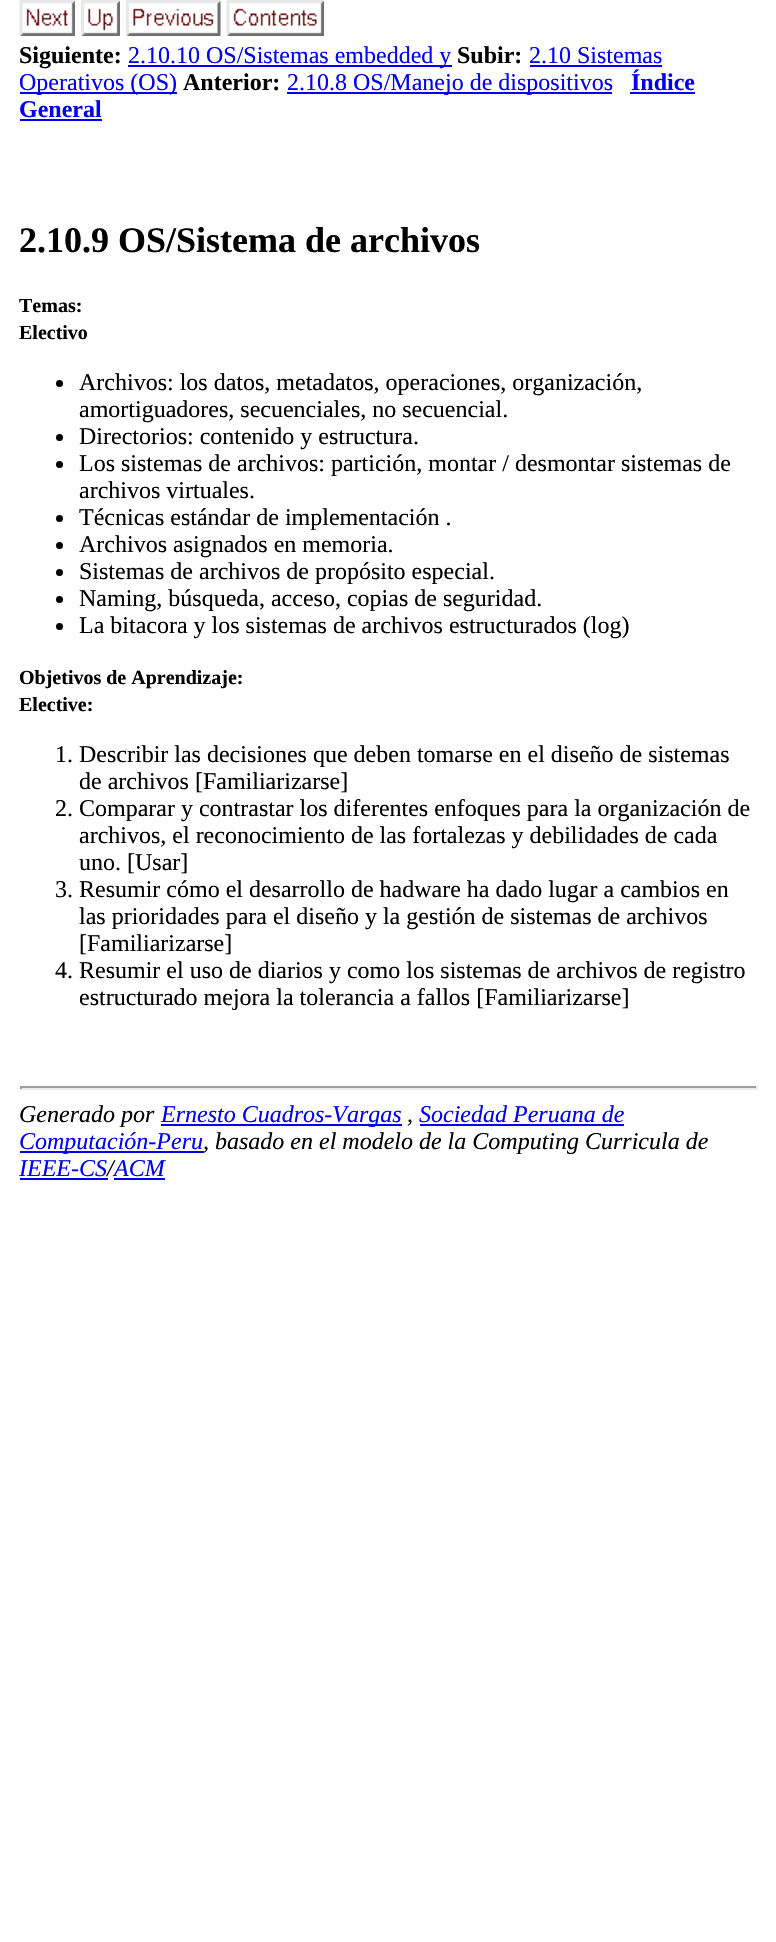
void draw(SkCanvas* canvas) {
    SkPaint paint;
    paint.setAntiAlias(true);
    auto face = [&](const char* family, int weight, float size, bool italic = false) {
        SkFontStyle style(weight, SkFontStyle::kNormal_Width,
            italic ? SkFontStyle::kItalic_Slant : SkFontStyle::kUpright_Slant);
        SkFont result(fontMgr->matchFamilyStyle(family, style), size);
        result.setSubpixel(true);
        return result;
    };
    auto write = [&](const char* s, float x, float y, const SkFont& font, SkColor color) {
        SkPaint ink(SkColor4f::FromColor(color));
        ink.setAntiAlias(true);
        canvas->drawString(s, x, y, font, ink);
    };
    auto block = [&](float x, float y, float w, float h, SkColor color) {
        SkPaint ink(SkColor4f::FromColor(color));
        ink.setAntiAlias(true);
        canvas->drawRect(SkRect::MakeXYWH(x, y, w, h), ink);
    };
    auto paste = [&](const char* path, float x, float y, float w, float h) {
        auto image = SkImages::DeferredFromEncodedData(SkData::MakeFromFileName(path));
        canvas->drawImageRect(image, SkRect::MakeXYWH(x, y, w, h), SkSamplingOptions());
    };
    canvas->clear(SK_ColorWHITE);
    paste("pic1.png", 19, 0, 56, 36);
    paste("pic2.png", 81, 0, 39, 36);
    paste("pic3.png", 126, 0, 95, 36);
    paste("pic4.png", 226, 0, 98, 36);
    auto kFont1 = face("Liberation Serif", 700, 24);
    write("Siguiente:", 19, 63, kFont1, SK_ColorBLACK);
    block(128, 65, 324, 2, SkColorSetRGB(0, 0, 238));
    auto kFont2 = face("Liberation Serif", 400, 24);
    write("2.10.10 OS/Sistemas embedded y", 128, 63, kFont2, SkColorSetRGB(0, 0, 238));
    write("Subir:", 457, 63, kFont1, SK_ColorBLACK);
    write("2.10 Sistemas", 529, 63, kFont2, SkColorSetRGB(0, 0, 238));
    block(530, 65, 132, 2, SkColorSetRGB(0, 0, 238));
    block(20, 92, 157, 2, SkColorSetRGB(0, 0, 238));
    write("Operativos (OS)", 19, 90, kFont2, SkColorSetRGB(0, 0, 238));
    write("Anterior:", 183, 90, kFont1, SK_ColorBLACK);
    block(287, 92, 325, 2, SkColorSetRGB(0, 0, 238));
    write("2.10.8 OS/Manejo de dispositivos", 287, 90, kFont2, SkColorSetRGB(0, 0, 238));
    write("Índice", 631, 90, kFont1, SkColorSetRGB(0, 0, 238));
    block(630, 92, 65, 2, SkColorSetRGB(0, 0, 238));
    write("General", 19, 117, kFont1, SkColorSetRGB(0, 0, 238));
    block(20, 119, 82, 2, SkColorSetRGB(0, 0, 238));
    auto kFont3 = face("Liberation Serif", 700, 36);
    write("2.10.9 OS/Sistema de archivos", 19, 252, kFont3, SK_ColorBLACK);
    auto kFont4 = face("Liberation Serif", 700, 20);
    write("Temas:", 19, 312, kFont4, SK_ColorBLACK);
    write("Electivo", 19, 339, kFont4, SK_ColorBLACK);
    paint.setColor(SK_ColorBLACK);
    canvas->drawCircle(59.5f, 383.5f, 3.5f, paint);
    write("Archivos: los datos, metadatos, operaciones, organización,", 79, 390, kFont2, SK_ColorBLACK);
    write("amortiguadores, secuenciales, no secuencial.", 79, 417, kFont2, SK_ColorBLACK);
    canvas->drawCircle(59.5f, 437.5f, 3.5f, paint);
    write("Directorios: contenido y estructura.", 79, 444, kFont2, SK_ColorBLACK);
    canvas->drawCircle(59.5f, 464.5f, 3.5f, paint);
    write("Los sistemas de archivos: partición, montar / desmontar sistemas de", 79, 471, kFont2, SK_ColorBLACK);
    write("archivos virtuales.", 79, 498, kFont2, SK_ColorBLACK);
    canvas->drawCircle(59.5f, 518.5f, 3.5f, paint);
    write("Técnicas estándar de implementación .", 79, 525, kFont2, SK_ColorBLACK);
    canvas->drawCircle(59.5f, 545.5f, 3.5f, paint);
    write("Archivos asignados en memoria.", 79, 552, kFont2, SK_ColorBLACK);
    canvas->drawCircle(59.5f, 572.5f, 3.5f, paint);
    write("Sistemas de archivos de propósito especial.", 79, 579, kFont2, SK_ColorBLACK);
    canvas->drawCircle(59.5f, 599.5f, 3.5f, paint);
    write("Naming, búsqueda, acceso, copias de seguridad.", 79, 606, kFont2, SK_ColorBLACK);
    canvas->drawCircle(59.5f, 626.5f, 3.5f, paint);
    write("La bitacora y los sistemas de archivos estructurados (log)", 79, 633, kFont2, SK_ColorBLACK);
    write("Objetivos de Aprendizaje:", 19, 684, kFont4, SK_ColorBLACK);
    write("Elective:", 19, 711, kFont4, SK_ColorBLACK);
    write("1. Describir las decisiones que deben tomarse en el diseño de sistemas", 55, 762, kFont2, SK_ColorBLACK);
    write("de archivos [Familiarizarse]", 79, 789, kFont2, SK_ColorBLACK);
    write("2. Comparar y contrastar los diferentes enfoques para la organización de", 55, 816, kFont2, SK_ColorBLACK);
    write("archivos, el reconocimiento de las fortalezas y debilidades de cada", 79, 843, kFont2, SK_ColorBLACK);
    write("uno. [Usar]", 79, 870, kFont2, SK_ColorBLACK);
    write("3. Resumir cómo el desarrollo de hadware ha dado lugar a cambios en", 55, 897, kFont2, SK_ColorBLACK);
    write("las prioridades para el diseño y la gestión de sistemas de archivos", 79, 924, kFont2, SK_ColorBLACK);
    write("[Familiarizarse]", 79, 951, kFont2, SK_ColorBLACK);
    write("4. Resumir el uso de diarios y como los sistemas de archivos de registro", 55, 978, kFont2, SK_ColorBLACK);
    write("estructurado mejora la tolerancia a fallos [Familiarizarse]", 79, 1005, kFont2, SK_ColorBLACK);
    block(20, 1086, 738, 2, SkColorSetRGB(159, 159, 159));
    block(756, 1086, 2, 3, SkColorSetRGB(238, 238, 238));
    block(20, 1088, 738, 2, SkColorSetRGB(238, 238, 238));
    block(20, 1086, 2, 3, SkColorSetRGB(159, 159, 159));
    auto kFont5 = face("Liberation Serif", 400, 24, true);
    write("Generado por", 19, 1122, kFont5, SK_ColorBLACK);
    block(161, 1124, 241, 2, SkColorSetRGB(0, 0, 238));
    write("Ernesto Cuadros-Vargas", 161, 1122, kFont5, SkColorSetRGB(0, 0, 238));
    write(",", 407, 1122, kFont5, SK_ColorBLACK);
    block(420, 1124, 204, 2, SkColorSetRGB(0, 0, 238));
    write("Sociedad Peruana de", 419, 1122, kFont5, SkColorSetRGB(0, 0, 238));
    block(20, 1151, 184, 2, SkColorSetRGB(0, 0, 238));
    write("Computación-Peru", 19, 1149, kFont5, SkColorSetRGB(0, 0, 238));
    write(", basado en el modelo de la Computing Curricula de", 203, 1149, kFont5, SK_ColorBLACK);
    write("IEEE-CS", 19, 1176, kFont5, SkColorSetRGB(0, 0, 238));
    block(20, 1178, 88, 2, SkColorSetRGB(0, 0, 238));
    write("/", 107, 1176, kFont5, SK_ColorBLACK);
    block(114, 1178, 51, 2, SkColorSetRGB(0, 0, 238));
    write("ACM", 114, 1176, kFont5, SkColorSetRGB(0, 0, 238));
}
